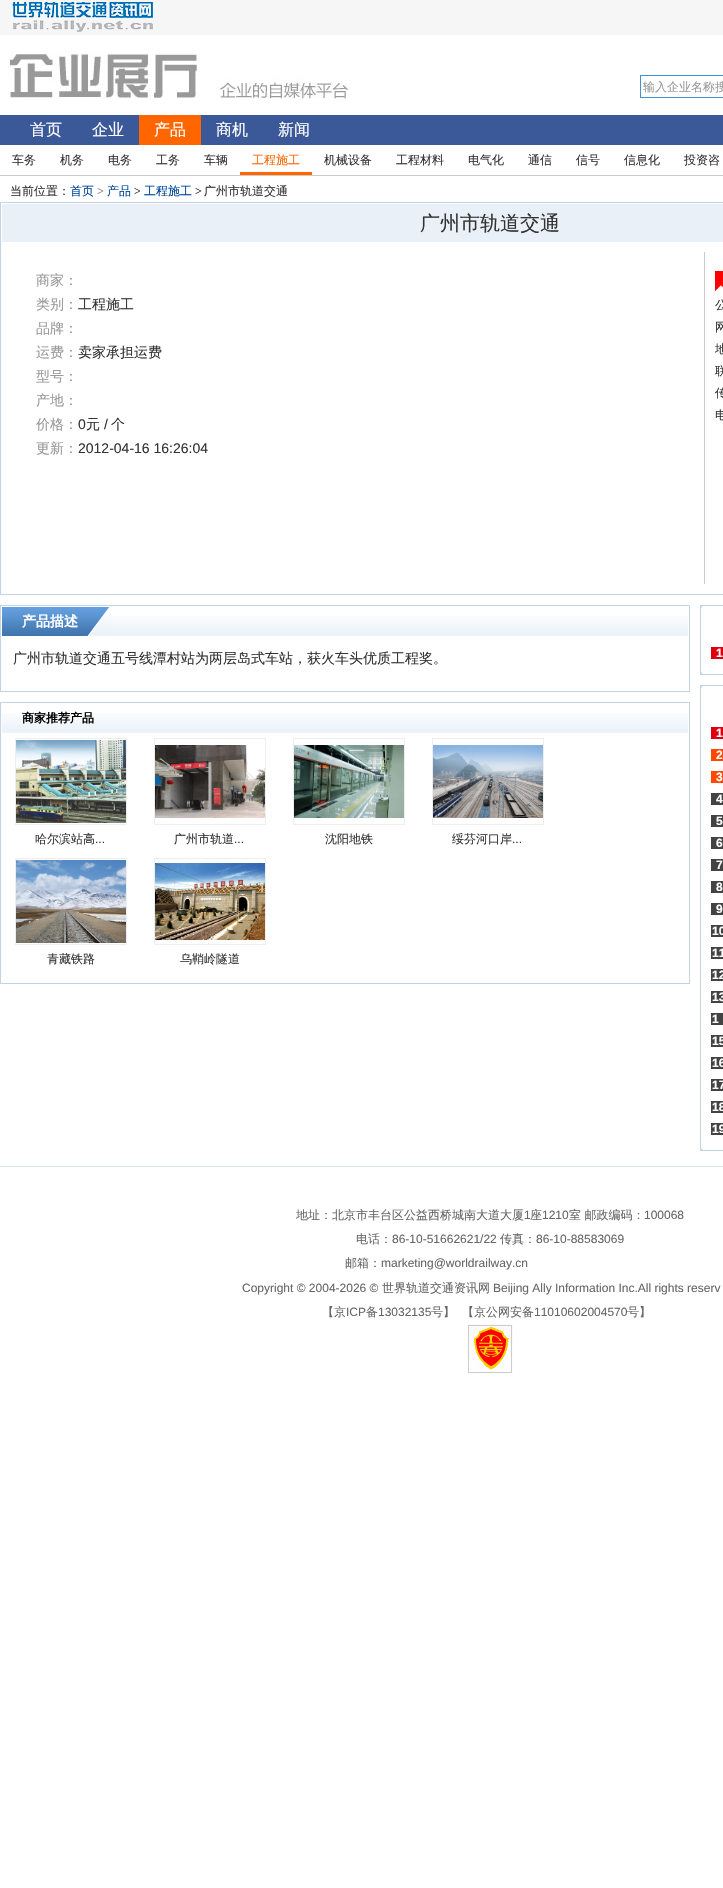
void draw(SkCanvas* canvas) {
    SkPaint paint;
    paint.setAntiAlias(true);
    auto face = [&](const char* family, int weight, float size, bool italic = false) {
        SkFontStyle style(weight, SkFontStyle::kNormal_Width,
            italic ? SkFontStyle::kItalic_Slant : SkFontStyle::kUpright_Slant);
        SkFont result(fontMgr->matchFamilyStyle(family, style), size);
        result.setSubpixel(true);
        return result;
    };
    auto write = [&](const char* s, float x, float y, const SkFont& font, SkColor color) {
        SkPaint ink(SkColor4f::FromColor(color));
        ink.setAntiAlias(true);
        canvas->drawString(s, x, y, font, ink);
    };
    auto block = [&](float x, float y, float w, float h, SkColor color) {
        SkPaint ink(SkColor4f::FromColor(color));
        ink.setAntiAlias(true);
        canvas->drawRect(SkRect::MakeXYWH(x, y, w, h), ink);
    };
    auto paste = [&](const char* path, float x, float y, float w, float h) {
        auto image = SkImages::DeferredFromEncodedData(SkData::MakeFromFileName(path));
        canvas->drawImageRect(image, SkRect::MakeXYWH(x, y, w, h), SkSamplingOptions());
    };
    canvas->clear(SK_ColorWHITE);
    block(0, 0, 723, 35, SkColorSetRGB(246, 246, 246));
    paste("pic1.png", 12, 2, 141, 30);
    paste("pic2.png", 8, 51, 343, 48);
    paint.setStyle(SkPaint::kStroke_Style);
    paint.setStrokeWidth(1);
    paint.setColor(SkColorSetRGB(61, 149, 213));
    canvas->drawRect(SkRect::MakeXYWH(640.5f, 75.5f, 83, 22), paint);
    auto kFont1 = face("WenQuanYi Zen Hei", 500, 12);
    write("输入企业名称搜", 643, 91, kFont1, SkColorSetRGB(153, 153, 153));
    block(0, 115, 723, 30, SkColorSetRGB(59, 89, 152));
    auto kFont2 = face("WenQuanYi Zen Hei", 500, 16);
    write("首页", 30, 135, kFont2, SK_ColorWHITE);
    write("企业", 92, 135, kFont2, SK_ColorWHITE);
    block(139, 115, 62, 30, SkColorSetRGB(255, 102, 0));
    write("产品", 154, 135, kFont2, SK_ColorWHITE);
    write("商机", 216, 135, kFont2, SK_ColorWHITE);
    write("新闻", 278, 135, kFont2, SK_ColorWHITE);
    block(0, 175, 723, 1, SkColorSetRGB(204, 204, 204));
    write("车务", 12, 164, kFont1, SkColorSetRGB(51, 51, 51));
    write("机务", 60, 164, kFont1, SkColorSetRGB(51, 51, 51));
    write("电务", 108, 164, kFont1, SkColorSetRGB(51, 51, 51));
    write("工务", 156, 164, kFont1, SkColorSetRGB(51, 51, 51));
    write("车辆", 204, 164, kFont1, SkColorSetRGB(51, 51, 51));
    block(240, 172, 72, 3, SkColorSetRGB(255, 102, 0));
    write("工程施工", 252, 164, kFont1, SkColorSetRGB(255, 102, 0));
    write("机械设备", 324, 164, kFont1, SkColorSetRGB(51, 51, 51));
    write("工程材料", 396, 164, kFont1, SkColorSetRGB(51, 51, 51));
    write("电气化", 468, 164, kFont1, SkColorSetRGB(51, 51, 51));
    write("通信", 528, 164, kFont1, SkColorSetRGB(51, 51, 51));
    write("信号", 576, 164, kFont1, SkColorSetRGB(51, 51, 51));
    write("信息化", 624, 164, kFont1, SkColorSetRGB(51, 51, 51));
    write("投资咨", 684, 164, kFont1, SkColorSetRGB(51, 51, 51));
    write("当前位置：", 10, 195, kFont1, SkColorSetRGB(51, 51, 51));
    write("首页", 70, 195, kFont1, SkColorSetRGB(0, 68, 153));
    auto kFont3 = face("Liberation Serif", 400, 12);
    write(">", 97, 195, kFont3, SkColorSetRGB(126, 126, 126));
    write("产品", 107, 195, kFont1, SkColorSetRGB(0, 68, 153));
    write(">", 134, 195, kFont3, SkColorSetRGB(51, 51, 51));
    write("工程施工", 144, 195, kFont1, SkColorSetRGB(0, 68, 153));
    write(">", 195, 195, kFont3, SkColorSetRGB(51, 51, 51));
    write("广州市轨道交通", 204, 195, kFont1, SkColorSetRGB(51, 51, 51));
    paint.setColor(SkColorSetRGB(195, 212, 231));
    canvas->drawRect(SkRect::MakeXYWH(0.5f, 202.5f, 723, 392), paint);
    block(2, 204, 721, 38, SkColorSetRGB(234, 240, 247));
    auto kFont4 = face("WenQuanYi Zen Hei", 500, 20);
    write("广州市轨道交通", 420, 230, kFont4, SkColorSetRGB(51, 51, 51));
    block(704, 252, 1, 332, SkColorSetRGB(204, 204, 204));
    auto kFont5 = face("WenQuanYi Zen Hei", 500, 14);
    write("商家：", 36, 285, kFont5, SkColorSetRGB(153, 153, 153));
    write("类别：", 36, 309, kFont5, SkColorSetRGB(153, 153, 153));
    write("工程施工", 78, 309, kFont5, SkColorSetRGB(51, 51, 51));
    write("品牌：", 36, 333, kFont5, SkColorSetRGB(153, 153, 153));
    write("运费：", 36, 357, kFont5, SkColorSetRGB(153, 153, 153));
    write("卖家承担运费", 78, 357, kFont5, SkColorSetRGB(51, 51, 51));
    write("型号：", 36, 381, kFont5, SkColorSetRGB(153, 153, 153));
    write("产地：", 36, 405, kFont5, SkColorSetRGB(153, 153, 153));
    write("价格：", 36, 429, kFont5, SkColorSetRGB(153, 153, 153));
    auto kFont6 = face("Liberation Sans", 400, 14);
    write("0", 78, 429, kFont6, SkColorSetRGB(51, 51, 51));
    write("元", 86, 429, kFont5, SkColorSetRGB(51, 51, 51));
    write("/", 104, 429, kFont6, SkColorSetRGB(51, 51, 51));
    write("个", 111, 429, kFont5, SkColorSetRGB(51, 51, 51));
    write("更新：", 36, 453, kFont5, SkColorSetRGB(153, 153, 153));
    write("2012-04-16 16:26:04", 78, 453, kFont6, SkColorSetRGB(51, 51, 51));
    paste("pic3.png", 715, 271, 8, 20);
    write("公", 715, 309, kFont1, SkColorSetRGB(51, 51, 51));
    write("网", 715, 331, kFont1, SkColorSetRGB(51, 51, 51));
    write("地", 715, 353, kFont1, SkColorSetRGB(51, 51, 51));
    write("联", 715, 375, kFont1, SkColorSetRGB(51, 51, 51));
    write("传", 715, 397, kFont1, SkColorSetRGB(51, 51, 51));
    write("电", 715, 419, kFont1, SkColorSetRGB(51, 51, 51));
    canvas->drawRect(SkRect::MakeXYWH(0.5f, 605.5f, 689, 86), paint);
    paste("pic4.png", 110, 616, 578, 20);
    paste("pic5.png", 2, 607, 108, 29);
    auto kFont7 = face("WenQuanYi Zen Hei", 700, 14);
    write("产品描述", 22, 626, kFont7, SK_ColorWHITE);
    write("广州市轨道交通五号线潭村站为两层岛式车站，获火车头优质工程奖。", 13, 663, kFont5, SkColorSetRGB(51, 51, 51));
    canvas->drawRect(SkRect::MakeXYWH(0.5f, 702.5f, 689, 281), paint);
    paste("pic6.png", 2, 713, 686, 20);
    auto kFont8 = face("WenQuanYi Zen Hei", 700, 12);
    write("商家推荐产品", 22, 722, kFont8, SK_ColorBLACK);
    paint.setColor(SkColorSetRGB(238, 238, 238));
    canvas->drawRect(SkRect::MakeXYWH(15.5f, 738.5f, 111, 86), paint);
    paste("pic7.png", 16, 740, 110, 83);
    write("哈尔滨站高", 35, 843, kFont1, SkColorSetRGB(51, 51, 51));
    auto kFont9 = face("Liberation Sans", 400, 12);
    write("...", 95, 843, kFont9, SkColorSetRGB(51, 51, 51));
    canvas->drawRect(SkRect::MakeXYWH(154.5f, 738.5f, 111, 86), paint);
    paste("pic8.png", 155, 745, 110, 73);
    write("广州市轨道", 174, 843, kFont1, SkColorSetRGB(51, 51, 51));
    write("...", 234, 843, kFont9, SkColorSetRGB(51, 51, 51));
    canvas->drawRect(SkRect::MakeXYWH(293.5f, 738.5f, 111, 86), paint);
    paste("pic9.png", 294, 745, 110, 73);
    write("沈阳地铁", 325, 843, kFont1, SkColorSetRGB(51, 51, 51));
    canvas->drawRect(SkRect::MakeXYWH(432.5f, 738.5f, 111, 86), paint);
    paste("pic10.png", 433, 745, 110, 73);
    write("绥芬河口岸", 452, 843, kFont1, SkColorSetRGB(51, 51, 51));
    write("...", 512, 843, kFont9, SkColorSetRGB(51, 51, 51));
    canvas->drawRect(SkRect::MakeXYWH(15.5f, 858.5f, 111, 86), paint);
    paste("pic11.png", 16, 860, 110, 83);
    write("青藏铁路", 47, 963, kFont1, SkColorSetRGB(51, 51, 51));
    canvas->drawRect(SkRect::MakeXYWH(154.5f, 858.5f, 111, 86), paint);
    paste("pic12.png", 155, 863, 110, 77);
    write("乌鞘岭隧道", 180, 963, kFont1, SkColorSetRGB(51, 51, 51));
    paint.setColor(SkColorSetRGB(195, 212, 231));
    canvas->drawRect(SkRect::MakeXYWH(700.5f, 605.5f, 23, 69), paint);
    paste("pic13.png", 701, 606, 2, 2);
    block(711, 647, 12, 12, SkColorSetRGB(221, 0, 12));
    auto kFont10 = face("Liberation Sans", 700, 12);
    write("1", 716, 657, kFont10, SK_ColorWHITE);
    paste("pic14.png", 701, 672, 2, 2);
    canvas->drawRect(SkRect::MakeXYWH(700.5f, 685.5f, 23, 465), paint);
    paste("pic13.png", 701, 686, 2, 2);
    block(711, 727, 12, 12, SkColorSetRGB(221, 0, 12));
    write("1", 716, 737, kFont10, SK_ColorWHITE);
    block(711, 749, 12, 12, SkColorSetRGB(255, 72, 0));
    write("2", 716, 759, kFont10, SK_ColorWHITE);
    block(711, 771, 12, 12, SkColorSetRGB(255, 72, 0));
    write("3", 716, 781, kFont10, SK_ColorWHITE);
    block(711, 793, 12, 12, SkColorSetRGB(67, 67, 67));
    write("4", 716, 803, kFont10, SK_ColorWHITE);
    block(711, 815, 12, 12, SkColorSetRGB(67, 67, 67));
    write("5", 716, 825, kFont10, SK_ColorWHITE);
    block(711, 837, 12, 12, SkColorSetRGB(67, 67, 67));
    write("6", 716, 847, kFont10, SK_ColorWHITE);
    block(711, 859, 12, 12, SkColorSetRGB(67, 67, 67));
    write("7", 716, 869, kFont10, SK_ColorWHITE);
    block(711, 881, 12, 12, SkColorSetRGB(67, 67, 67));
    write("8", 716, 891, kFont10, SK_ColorWHITE);
    block(711, 903, 12, 12, SkColorSetRGB(67, 67, 67));
    write("9", 716, 913, kFont10, SK_ColorWHITE);
    block(711, 925, 12, 12, SkColorSetRGB(67, 67, 67));
    write("10", 712, 935, kFont10, SK_ColorWHITE);
    block(711, 947, 12, 12, SkColorSetRGB(67, 67, 67));
    write("11", 712, 957, kFont10, SK_ColorWHITE);
    block(711, 969, 12, 12, SkColorSetRGB(67, 67, 67));
    write("12", 712, 979, kFont10, SK_ColorWHITE);
    block(711, 991, 12, 12, SkColorSetRGB(67, 67, 67));
    write("13", 712, 1001, kFont10, SK_ColorWHITE);
    block(711, 1013, 12, 12, SkColorSetRGB(67, 67, 67));
    write("1", 712, 1023, kFont10, SK_ColorWHITE);
    block(711, 1035, 12, 12, SkColorSetRGB(67, 67, 67));
    write("15", 712, 1045, kFont10, SK_ColorWHITE);
    block(711, 1057, 12, 12, SkColorSetRGB(67, 67, 67));
    write("16", 712, 1067, kFont10, SK_ColorWHITE);
    block(711, 1079, 12, 12, SkColorSetRGB(67, 67, 67));
    write("17", 712, 1089, kFont10, SK_ColorWHITE);
    block(711, 1101, 12, 12, SkColorSetRGB(67, 67, 67));
    write("18", 712, 1111, kFont10, SK_ColorWHITE);
    block(711, 1123, 12, 12, SkColorSetRGB(67, 67, 67));
    write("19", 712, 1133, kFont10, SK_ColorWHITE);
    paste("pic14.png", 701, 1148, 2, 2);
    block(0, 1166, 723, 1, SkColorSetRGB(219, 231, 237));
    write("地址：北京市丰台区公益西桥城南大道大厦", 296, 1219, kFont1, SkColorSetRGB(102, 102, 102));
    write("1", 524, 1219, kFont9, SkColorSetRGB(102, 102, 102));
    write("座", 530, 1219, kFont1, SkColorSetRGB(102, 102, 102));
    write("1210", 542, 1219, kFont9, SkColorSetRGB(102, 102, 102));
    write("室 邮政编码：", 569, 1219, kFont1, SkColorSetRGB(102, 102, 102));
    write("100068", 644, 1219, kFont9, SkColorSetRGB(102, 102, 102));
    write("电话：", 356, 1243, kFont1, SkColorSetRGB(102, 102, 102));
    write("86-10-51662621/22", 392, 1243, kFont9, SkColorSetRGB(102, 102, 102));
    write("传真：", 500, 1243, kFont1, SkColorSetRGB(102, 102, 102));
    write("86-10-88583069", 536, 1243, kFont9, SkColorSetRGB(102, 102, 102));
    write("邮箱：", 345, 1267, kFont1, SkColorSetRGB(102, 102, 102));
    write("marketing@worldrailway.cn", 381, 1267, kFont9, SkColorSetRGB(102, 102, 102));
    write("Copyright © 2004-2026 ©", 242, 1292, kFont9, SkColorSetRGB(102, 102, 102));
    write("世界轨道交通资讯网", 382, 1292, kFont1, SkColorSetRGB(102, 102, 102));
    write("Beijing Ally Information Inc.All rights reserv", 493, 1292, kFont9, SkColorSetRGB(102, 102, 102));
    write("【京", 322, 1316, kFont1, SkColorSetRGB(102, 102, 102));
    write("ICP", 346, 1316, kFont9, SkColorSetRGB(102, 102, 102));
    write("备", 366, 1316, kFont1, SkColorSetRGB(102, 102, 102));
    write("13032135", 378, 1316, kFont9, SkColorSetRGB(102, 102, 102));
    write("号】", 431, 1316, kFont1, SkColorSetRGB(102, 102, 102));
    write("【京公网安备", 462, 1316, kFont1, SkColorSetRGB(102, 102, 102));
    write("11010602004570", 534, 1316, kFont9, SkColorSetRGB(102, 102, 102));
    write("号】", 627, 1316, kFont1, SkColorSetRGB(102, 102, 102));
    paste("pic15.png", 468, 1324, 45, 49);
}
